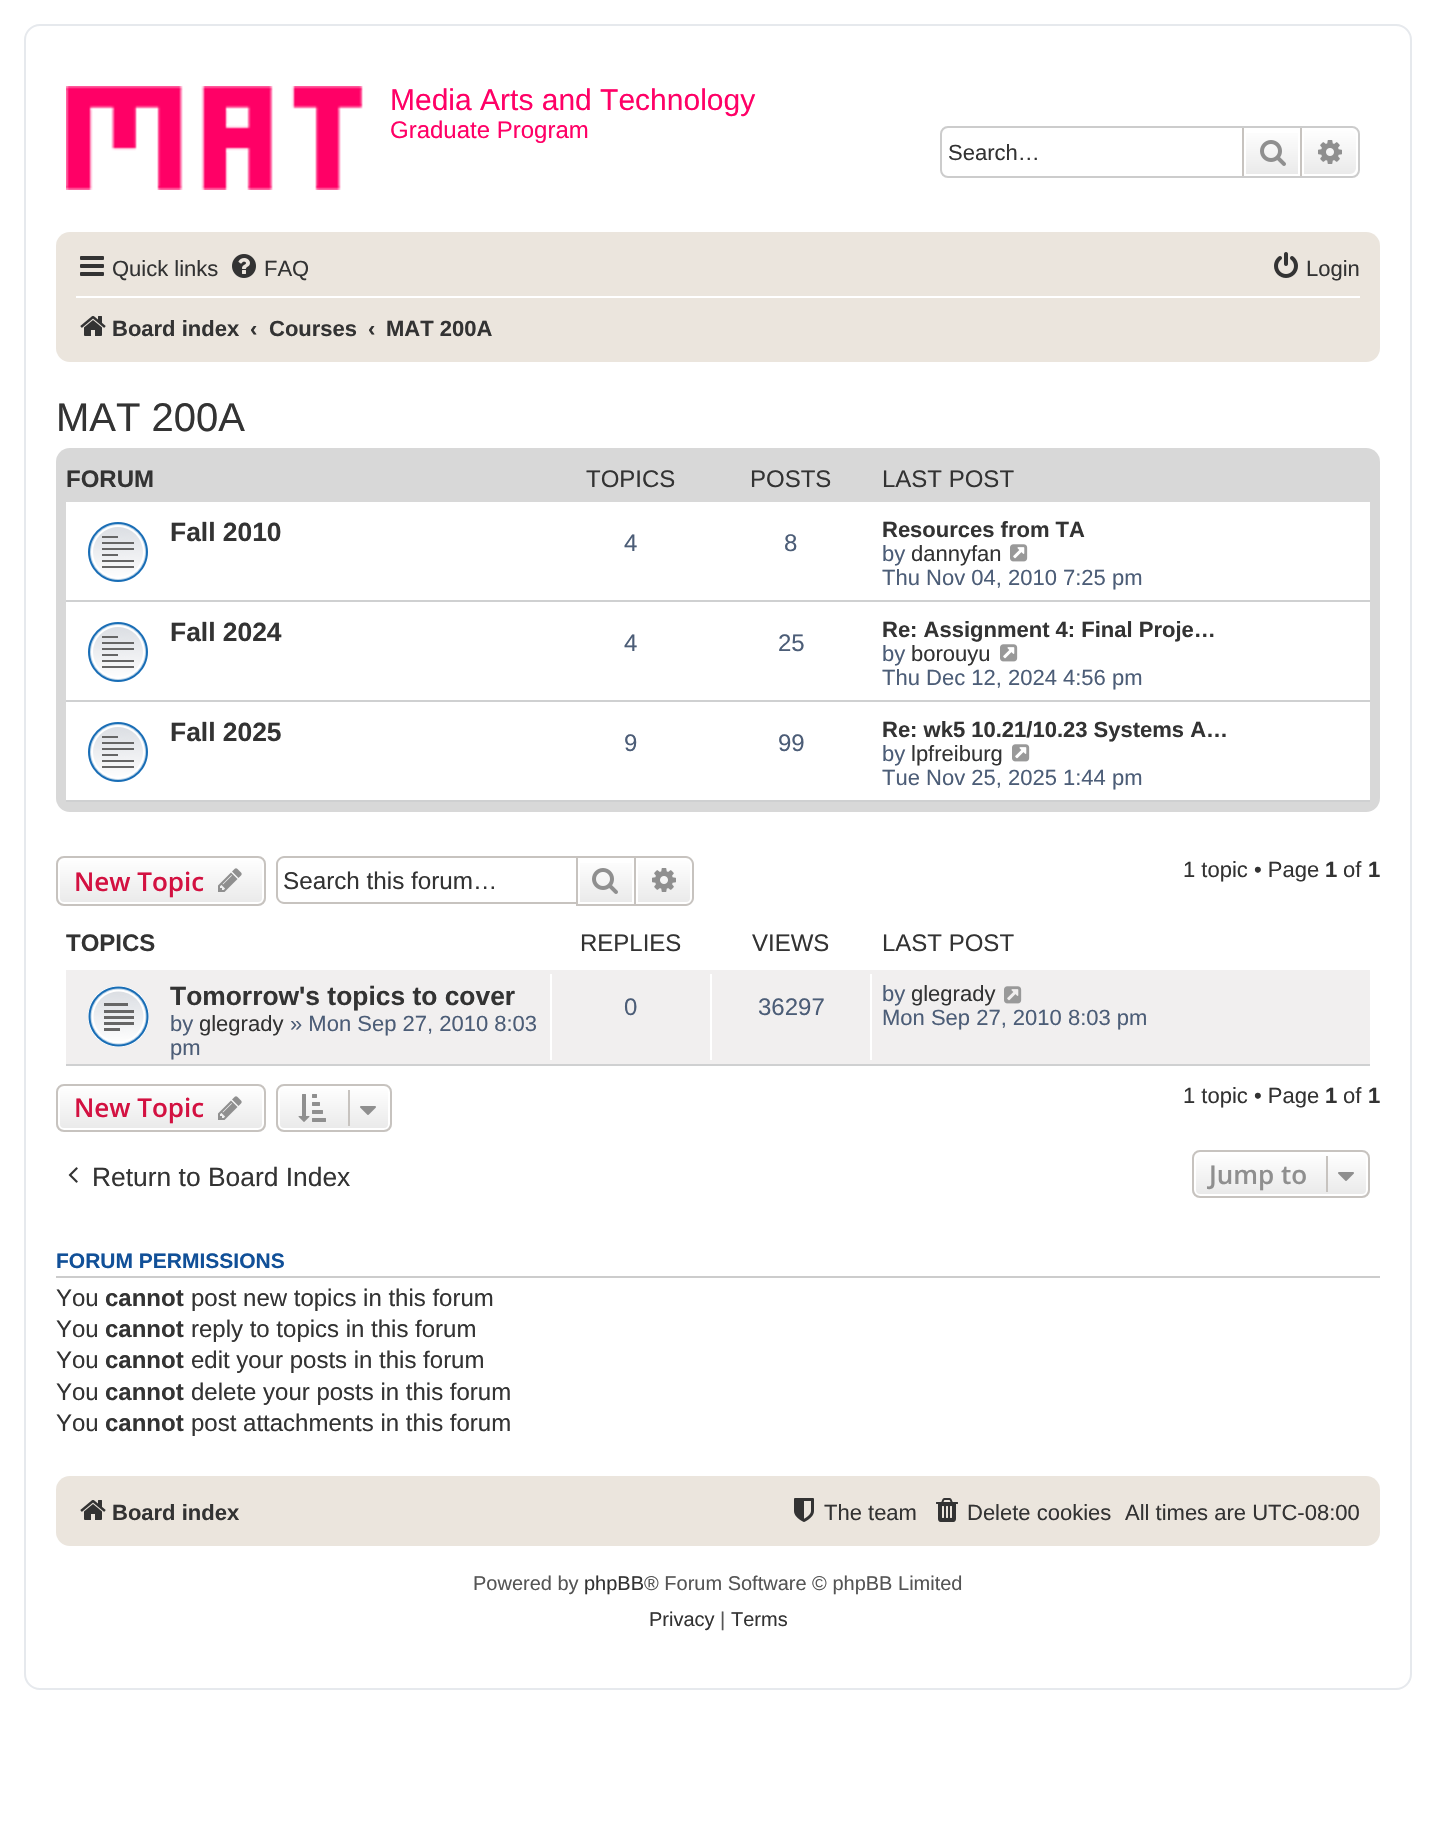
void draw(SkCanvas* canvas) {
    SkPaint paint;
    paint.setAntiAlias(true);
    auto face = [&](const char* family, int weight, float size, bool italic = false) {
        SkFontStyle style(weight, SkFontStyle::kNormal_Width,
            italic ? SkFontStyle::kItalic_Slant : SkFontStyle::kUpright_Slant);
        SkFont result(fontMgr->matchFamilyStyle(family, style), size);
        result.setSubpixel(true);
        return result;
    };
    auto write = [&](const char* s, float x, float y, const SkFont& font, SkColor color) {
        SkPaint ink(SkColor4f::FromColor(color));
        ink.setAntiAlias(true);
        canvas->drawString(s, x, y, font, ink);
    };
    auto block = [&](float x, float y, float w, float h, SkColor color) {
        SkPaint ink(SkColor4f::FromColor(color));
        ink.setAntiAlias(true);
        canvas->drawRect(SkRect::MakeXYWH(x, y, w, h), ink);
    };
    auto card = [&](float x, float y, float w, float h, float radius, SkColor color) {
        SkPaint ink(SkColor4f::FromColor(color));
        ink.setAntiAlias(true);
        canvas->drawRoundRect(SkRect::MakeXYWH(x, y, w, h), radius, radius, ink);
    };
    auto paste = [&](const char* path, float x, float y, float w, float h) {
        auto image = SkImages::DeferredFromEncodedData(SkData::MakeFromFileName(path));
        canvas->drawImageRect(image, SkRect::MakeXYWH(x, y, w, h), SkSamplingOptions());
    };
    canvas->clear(SK_ColorWHITE);
    paint.setStyle(SkPaint::kStroke_Style);
    paint.setStrokeWidth(2);
    paint.setColor(SkColorSetRGB(230, 233, 237));
    canvas->drawRoundRect(SkRect::MakeXYWH(25, 25, 1386, 1664), 15, 15, paint);
    paste("pic1.png", 66, 86, 297, 104);
    auto kFont1 = face("Liberation Sans", 400, 30);
    write("Media Arts and Technology", 390, 110, kFont1, SkColorSetRGB(255, 0, 102));
    auto kFont2 = face("Liberation Sans", 400, 24);
    write("Graduate Program", 390, 138, kFont2, SkColorSetRGB(255, 0, 102));
    paint.setColor(SkColorSetRGB(204, 204, 204));
    canvas->drawRoundRect(SkRect::MakeXYWH(941, 127, 418, 50), 7, 7, paint);
    auto kFont3 = face("Liberation Sans", 400, 22);
    write("Search…", 948, 160, kFont3, SkColorSetRGB(51, 51, 51));
    paint.setStyle(SkPaint::kFill_Style);
    {
        const SkColor colors[] = {SK_ColorWHITE, SkColorSetRGB(233, 233, 233)};
        const float stops[] = {0, 1};
        const SkPoint ends[] = {{1272, 128}, {1272, 176}};
        paint.setShader(SkGradientShader::MakeLinear(ends, colors, stops, 2, SkTileMode::kClamp));
        paint.setAlpha(255);
    }
    canvas->drawRect(SkRect::MakeXYWH(1246, 133, 52, 41), paint);
    block(1300, 128, 2, 48, SkColorSetRGB(199, 195, 191));
    block(1242, 128, 2, 48, SkColorSetRGB(199, 195, 191));
    paste("pic2.png", 1260, 140, 26, 26);
    {
        const SkColor colors[] = {SK_ColorWHITE, SkColorSetRGB(233, 233, 233)};
        const float stops[] = {0, 1};
        const SkPoint ends[] = {{1330, 128}, {1330, 176}};
        paint.setShader(SkGradientShader::MakeLinear(ends, colors, stops, 2, SkTileMode::kClamp));
        paint.setAlpha(255);
    }
    canvas->drawPath(SkPathBuilder().moveTo(1303, 129).lineTo(1350, 129).cubicTo(1354, 129, 1357, 132, 1357, 136).lineTo(1357, 168).cubicTo(1357, 172, 1354, 175, 1350, 175).lineTo(1303, 175).close().detach(), paint);
    paint.setStyle(SkPaint::kStroke_Style);
    paint.setShader(nullptr);
    paint.setColor(SK_ColorWHITE);
    canvas->drawPath(SkPathBuilder().moveTo(1303, 129).lineTo(1350, 129).cubicTo(1354, 129, 1357, 132, 1357, 136).lineTo(1357, 168).cubicTo(1357, 172, 1354, 175, 1350, 175).lineTo(1303, 175).close().detach(), paint);
    paste("pic3.png", 1318, 140, 24, 24);
    card(56, 232, 1324, 130, 14, SkColorSetRGB(235, 229, 221));
    paste("pic4.png", 80, 256, 24, 20);
    write("Quick links", 112, 276, kFont3, SkColorSetRGB(51, 51, 51));
    paste("pic5.png", 232, 254, 24, 24);
    write("FAQ", 264, 276, kFont3, SkColorSetRGB(51, 51, 51));
    paste("pic6.png", 1274, 252, 24, 26);
    write("Login", 1306, 276, kFont3, SkColorSetRGB(51, 51, 51));
    block(76, 296, 1284, 2, SK_ColorWHITE);
    paste("pic7.png", 80, 316, 26, 20);
    auto kFont4 = face("Liberation Sans", 700, 22);
    write("Board index", 112, 336, kFont4, SkColorSetRGB(51, 51, 51));
    write("‹", 250, 336, kFont4, SkColorSetRGB(51, 51, 51));
    write("Courses", 269, 336, kFont4, SkColorSetRGB(51, 51, 51));
    write("‹", 368, 336, kFont4, SkColorSetRGB(51, 51, 51));
    write("MAT 200A", 386, 336, kFont4, SkColorSetRGB(51, 51, 51));
    auto kFont5 = face("Liberation Sans", 400, 40);
    write("MAT 200A", 56, 431, kFont5, SkColorSetRGB(51, 51, 51));
    card(56, 448, 1324, 364, 14, SkColorSetRGB(216, 216, 216));
    auto kFont6 = face("Liberation Sans", 700, 24);
    write("FORUM", 66, 487, kFont6, SkColorSetRGB(51, 51, 51));
    write("TOPICS", 586, 487, kFont2, SkColorSetRGB(51, 51, 51));
    write("POSTS", 750, 487, kFont2, SkColorSetRGB(51, 51, 51));
    write("LAST POST", 882, 487, kFont2, SkColorSetRGB(51, 51, 51));
    block(66, 502, 1304, 298, SK_ColorWHITE);
    block(66, 600, 1304, 2, SkColorSetRGB(207, 208, 209));
    paste("pic8.png", 88, 522, 60, 60);
    auto kFont7 = face("Liberation Sans", 700, 26.4f);
    write("Fall 2010", 170, 541, kFont7, SkColorSetRGB(51, 51, 51));
    write("4", 624, 551, kFont2, SkColorSetRGB(76, 93, 119));
    write("8", 784, 551, kFont2, SkColorSetRGB(76, 93, 119));
    write("Resources from TA", 882, 537, kFont4, SkColorSetRGB(51, 51, 51));
    write("by", 882, 561, kFont3, SkColorSetRGB(76, 93, 119));
    write("dannyfan", 911, 561, kFont3, SkColorSetRGB(51, 51, 51));
    paste("pic9.png", 1010, 544, 18, 18);
    write("Thu Nov 04, 2010 7:25 pm", 882, 585, kFont3, SkColorSetRGB(76, 93, 119));
    block(66, 700, 1304, 2, SkColorSetRGB(207, 208, 209));
    paste("pic8.png", 88, 622, 60, 60);
    write("Fall 2024", 170, 641, kFont7, SkColorSetRGB(51, 51, 51));
    write("4", 624, 651, kFont2, SkColorSetRGB(76, 93, 119));
    write("25", 778, 651, kFont2, SkColorSetRGB(76, 93, 119));
    write("Re: Assignment 4: Final Proje…", 882, 637, kFont4, SkColorSetRGB(51, 51, 51));
    write("by", 882, 661, kFont3, SkColorSetRGB(76, 93, 119));
    write("borouyu", 911, 661, kFont3, SkColorSetRGB(51, 51, 51));
    paste("pic9.png", 1000, 644, 18, 18);
    write("Thu Dec 12, 2024 4:56 pm", 882, 685, kFont3, SkColorSetRGB(76, 93, 119));
    block(66, 800, 1304, 2, SkColorSetRGB(207, 208, 209));
    paste("pic8.png", 88, 722, 60, 60);
    write("Fall 2025", 170, 741, kFont7, SkColorSetRGB(51, 51, 51));
    write("9", 624, 751, kFont2, SkColorSetRGB(76, 93, 119));
    write("99", 778, 751, kFont2, SkColorSetRGB(76, 93, 119));
    write("Re: wk5 10.21/10.23 Systems A…", 882, 737, kFont4, SkColorSetRGB(51, 51, 51));
    write("by", 882, 761, kFont3, SkColorSetRGB(76, 93, 119));
    write("lpfreiburg", 911, 761, kFont3, SkColorSetRGB(51, 51, 51));
    paste("pic9.png", 1012, 744, 18, 18);
    write("Tue Nov 25, 2025 1:44 pm", 882, 785, kFont3, SkColorSetRGB(76, 93, 119));
    canvas->save();
    canvas->clipPath(SkPathBuilder().moveTo(64, 856).lineTo(258, 856).cubicTo(262.5f, 856, 266, 859.5f, 266, 864).lineTo(266, 898).cubicTo(266, 902.5f, 262.5f, 906, 258, 906).lineTo(64, 906).cubicTo(59.5f, 906, 56, 902.5f, 56, 898).lineTo(56, 864).cubicTo(56, 859.5f, 59.5f, 856, 64, 856).close().detach(), true);
    paint.setStyle(SkPaint::kFill_Style);
    {
        const SkColor colors[] = {SK_ColorWHITE, SkColorSetRGB(233, 233, 233)};
        const float stops[] = {0, 1};
        const SkPoint ends[] = {{161, 858}, {161, 904}};
        paint.setShader(SkGradientShader::MakeLinear(ends, colors, stops, 2, SkTileMode::kClamp));
        paint.setAlpha(255);
    }
    canvas->drawRect(SkRect::MakeXYWH(56, 858, 210, 46), paint);
    canvas->restore();
    paint.setStyle(SkPaint::kStroke_Style);
    paint.setShader(nullptr);
    paint.setColor(SK_ColorWHITE);
    canvas->drawRoundRect(SkRect::MakeXYWH(59, 859, 204, 44), 5, 5, paint);
    paint.setColor(SkColorSetRGB(199, 195, 191));
    canvas->drawRoundRect(SkRect::MakeXYWH(57, 857, 208, 48), 7, 7, paint);
    auto kFont8 = face("Open Sans", 600, 26);
    write("New Topic", 74, 891, kFont8, SkColorSetRGB(211, 17, 65));
    paste("pic10.png", 218, 868, 24, 24);
    paint.setStyle(SkPaint::kFill_Style);
    canvas->drawPath(SkPathBuilder(SkPathFillType::kEvenOdd).moveTo(284, 856).lineTo(576, 856).lineTo(576, 904).lineTo(284, 904).cubicTo(280, 904, 276, 900, 276, 896).lineTo(276, 864).cubicTo(276, 860, 280, 856, 284, 856).close().moveTo(284, 858).lineTo(576, 858).lineTo(576, 902).lineTo(284, 902).cubicTo(281, 902, 278, 899, 278, 896).lineTo(278, 864).cubicTo(278, 861, 281, 858, 284, 858).close().detach(), paint);
    auto kFont9 = face("Liberation Sans", 400, 24.25f);
    write("Search this forum…", 283, 889, kFont9, SkColorSetRGB(51, 51, 51));
    {
        const SkColor colors[] = {SK_ColorWHITE, SkColorSetRGB(233, 233, 233)};
        const float stops[] = {0, 1};
        const SkPoint ends[] = {{606, 858}, {606, 904}};
        paint.setShader(SkGradientShader::MakeLinear(ends, colors, stops, 2, SkTileMode::kClamp));
        paint.setAlpha(255);
    }
    canvas->drawRect(SkRect::MakeXYWH(580, 863, 52, 39), paint);
    paint.setStyle(SkPaint::kStroke_Style);
    paint.setShader(nullptr);
    paint.setColor(SkColorSetRGB(199, 195, 191));
    canvas->drawRect(SkRect::MakeXYWH(577, 857, 58, 48), paint);
    paste("pic11.png", 592, 868, 26, 26);
    paint.setStyle(SkPaint::kFill_Style);
    {
        const SkColor colors[] = {SK_ColorWHITE, SkColorSetRGB(233, 233, 233)};
        const float stops[] = {0, 1};
        const SkPoint ends[] = {{664, 858}, {664, 904}};
        paint.setShader(SkGradientShader::MakeLinear(ends, colors, stops, 2, SkTileMode::kClamp));
        paint.setAlpha(255);
    }
    canvas->drawPath(SkPathBuilder().moveTo(637, 859).lineTo(686, 859).cubicTo(689, 859, 691, 861, 691, 864).lineTo(691, 898).cubicTo(691, 901, 689, 903, 686, 903).lineTo(637, 903).close().detach(), paint);
    paint.setStyle(SkPaint::kStroke_Style);
    paint.setShader(nullptr);
    paint.setColor(SK_ColorWHITE);
    canvas->drawPath(SkPathBuilder().moveTo(637, 859).lineTo(686, 859).cubicTo(689, 859, 691, 861, 691, 864).lineTo(691, 898).cubicTo(691, 901, 689, 903, 686, 903).lineTo(637, 903).close().detach(), paint);
    paint.setStyle(SkPaint::kFill_Style);
    paint.setColor(SkColorSetRGB(199, 195, 191));
    canvas->drawPath(SkPathBuilder(SkPathFillType::kEvenOdd).moveTo(636, 856).lineTo(686, 856).cubicTo(690, 856, 694, 860, 694, 864).lineTo(694, 898).cubicTo(694, 902, 690, 906, 686, 906).lineTo(636, 906).close().moveTo(636, 858).lineTo(686, 858).cubicTo(689, 858, 692, 861, 692, 864).lineTo(692, 898).cubicTo(692, 901, 689, 904, 686, 904).lineTo(636, 904).close().detach(), paint);
    paste("pic12.png", 652, 868, 24, 24);
    write("1 topic • Page", 1183, 877, kFont3, SkColorSetRGB(51, 51, 51));
    write("1", 1325, 877, kFont4, SkColorSetRGB(51, 51, 51));
    write("of", 1343, 877, kFont3, SkColorSetRGB(51, 51, 51));
    write("1", 1368, 877, kFont4, SkColorSetRGB(51, 51, 51));
    write("TOPICS", 66, 951, kFont6, SkColorSetRGB(51, 51, 51));
    write("REPLIES", 580, 951, kFont2, SkColorSetRGB(51, 51, 51));
    write("VIEWS", 752, 951, kFont2, SkColorSetRGB(51, 51, 51));
    write("LAST POST", 882, 951, kFont2, SkColorSetRGB(51, 51, 51));
    block(66, 970, 1304, 94, SkColorSetRGB(241, 239, 239));
    block(66, 1064, 1304, 2, SkColorSetRGB(207, 208, 209));
    paste("pic13.png", 88, 986, 61, 61);
    write("Tomorrow's topics to cover", 170, 1005, kFont7, SkColorSetRGB(51, 51, 51));
    write("by", 170, 1031, kFont3, SkColorSetRGB(76, 93, 119));
    write("glegrady", 199, 1031, kFont3, SkColorSetRGB(51, 51, 51));
    write("» Mon Sep 27, 2010 8:03", 290, 1031, kFont3, SkColorSetRGB(76, 93, 119));
    write("pm", 170, 1055, kFont3, SkColorSetRGB(76, 93, 119));
    block(550, 974, 2, 86, SK_ColorWHITE);
    write("0", 624, 1015, kFont2, SkColorSetRGB(76, 93, 119));
    block(710, 974, 2, 86, SK_ColorWHITE);
    write("36297", 758, 1015, kFont2, SkColorSetRGB(76, 93, 119));
    block(870, 974, 2, 86, SK_ColorWHITE);
    write("by", 882, 1001, kFont3, SkColorSetRGB(76, 93, 119));
    write("glegrady", 911, 1001, kFont3, SkColorSetRGB(51, 51, 51));
    paste("pic14.png", 1004, 986, 18, 18);
    write("Mon Sep 27, 2010 8:03 pm", 882, 1025, kFont3, SkColorSetRGB(76, 93, 119));
    canvas->save();
    canvas->clipPath(SkPathBuilder().moveTo(64, 1084).lineTo(258, 1084).cubicTo(262.5f, 1084, 266, 1087.5f, 266, 1092).lineTo(266, 1124).cubicTo(266, 1128.5f, 262.5f, 1132, 258, 1132).lineTo(64, 1132).cubicTo(59.5f, 1132, 56, 1128.5f, 56, 1124).lineTo(56, 1092).cubicTo(56, 1087.5f, 59.5f, 1084, 64, 1084).close().detach(), true);
    {
        const SkColor colors[] = {SK_ColorWHITE, SkColorSetRGB(233, 233, 233)};
        const float stops[] = {0, 1};
        const SkPoint ends[] = {{161, 1086}, {161, 1130}};
        paint.setShader(SkGradientShader::MakeLinear(ends, colors, stops, 2, SkTileMode::kClamp));
        paint.setAlpha(255);
    }
    canvas->drawRect(SkRect::MakeXYWH(56, 1086, 210, 44), paint);
    canvas->restore();
    paint.setStyle(SkPaint::kStroke_Style);
    paint.setShader(nullptr);
    paint.setColor(SK_ColorWHITE);
    canvas->drawRoundRect(SkRect::MakeXYWH(59, 1087, 204, 42), 5, 5, paint);
    paint.setColor(SkColorSetRGB(199, 195, 191));
    canvas->drawRoundRect(SkRect::MakeXYWH(57, 1085, 208, 46), 7, 7, paint);
    write("New Topic", 74, 1117, kFont8, SkColorSetRGB(211, 17, 65));
    paste("pic15.png", 218, 1096, 24, 24);
    canvas->save();
    canvas->clipPath(SkPathBuilder().moveTo(284, 1084).lineTo(384, 1084).cubicTo(388.5f, 1084, 392, 1087.5f, 392, 1092).lineTo(392, 1124).cubicTo(392, 1128.5f, 388.5f, 1132, 384, 1132).lineTo(284, 1132).cubicTo(279.5f, 1132, 276, 1128.5f, 276, 1124).lineTo(276, 1092).cubicTo(276, 1087.5f, 279.5f, 1084, 284, 1084).close().detach(), true);
    paint.setStyle(SkPaint::kFill_Style);
    {
        const SkColor colors[] = {SK_ColorWHITE, SkColorSetRGB(233, 233, 233)};
        const float stops[] = {0, 1};
        const SkPoint ends[] = {{334, 1086}, {334, 1130}};
        paint.setShader(SkGradientShader::MakeLinear(ends, colors, stops, 2, SkTileMode::kClamp));
        paint.setAlpha(255);
    }
    canvas->drawRect(SkRect::MakeXYWH(276, 1086, 116, 44), paint);
    canvas->restore();
    paint.setStyle(SkPaint::kStroke_Style);
    paint.setShader(nullptr);
    paint.setColor(SK_ColorWHITE);
    canvas->drawRoundRect(SkRect::MakeXYWH(279, 1087, 110, 42), 5, 5, paint);
    paint.setColor(SkColorSetRGB(199, 195, 191));
    canvas->drawRoundRect(SkRect::MakeXYWH(277, 1085, 114, 46), 7, 7, paint);
    paste("pic16.png", 298, 1094, 28, 28);
    block(348, 1090, 2, 36, SkColorSetRGB(199, 195, 191));
    paste("pic17.png", 360, 1106, 16, 9);
    write("1 topic • Page", 1183, 1103, kFont3, SkColorSetRGB(51, 51, 51));
    write("1", 1325, 1103, kFont4, SkColorSetRGB(51, 51, 51));
    write("of", 1343, 1103, kFont3, SkColorSetRGB(51, 51, 51));
    write("1", 1368, 1103, kFont4, SkColorSetRGB(51, 51, 51));
    paste("pic18.png", 68, 1167, 10, 16);
    auto kFont10 = face("Liberation Sans", 400, 26.4f);
    write("Return to Board Index", 92, 1186, kFont10, SkColorSetRGB(51, 51, 51));
    canvas->save();
    canvas->clipPath(SkPathBuilder().moveTo(1200, 1150).lineTo(1362, 1150).cubicTo(1366.5f, 1150, 1370, 1153.5f, 1370, 1158).lineTo(1370, 1190).cubicTo(1370, 1194.5f, 1366.5f, 1198, 1362, 1198).lineTo(1200, 1198).cubicTo(1195.5f, 1198, 1192, 1194.5f, 1192, 1190).lineTo(1192, 1158).cubicTo(1192, 1153.5f, 1195.5f, 1150, 1200, 1150).close().detach(), true);
    paint.setStyle(SkPaint::kFill_Style);
    {
        const SkColor colors[] = {SK_ColorWHITE, SkColorSetRGB(233, 233, 233)};
        const float stops[] = {0, 1};
        const SkPoint ends[] = {{1281, 1152}, {1281, 1196}};
        paint.setShader(SkGradientShader::MakeLinear(ends, colors, stops, 2, SkTileMode::kClamp));
        paint.setAlpha(255);
    }
    canvas->drawRect(SkRect::MakeXYWH(1192, 1152, 178, 44), paint);
    canvas->restore();
    paint.setStyle(SkPaint::kStroke_Style);
    paint.setShader(nullptr);
    paint.setColor(SK_ColorWHITE);
    canvas->drawRoundRect(SkRect::MakeXYWH(1195, 1153, 172, 42), 5, 5, paint);
    paint.setColor(SkColorSetRGB(199, 195, 191));
    canvas->drawRoundRect(SkRect::MakeXYWH(1193, 1151, 176, 46), 7, 7, paint);
    write("Jump to", 1209, 1184, kFont8, SkColorSetRGB(143, 143, 143));
    block(1326, 1156, 2, 36, SkColorSetRGB(199, 195, 191));
    paste("pic17.png", 1338, 1172, 16, 9);
    block(56, 1276, 1324, 2, SkColorSetRGB(204, 204, 204));
    auto kFont11 = face("Liberation Sans", 700, 21);
    write("FORUM PERMISSIONS", 56, 1268, kFont11, SkColorSetRGB(17, 80, 152));
    write("You", 56, 1306, kFont2, SkColorSetRGB(51, 51, 51));
    write("cannot", 105, 1306, kFont6, SkColorSetRGB(51, 51, 51));
    write("post new topics in this forum", 191, 1306, kFont2, SkColorSetRGB(51, 51, 51));
    write("You", 56, 1337, kFont2, SkColorSetRGB(51, 51, 51));
    write("cannot", 105, 1337, kFont6, SkColorSetRGB(51, 51, 51));
    write("reply to topics in this forum", 191, 1337, kFont2, SkColorSetRGB(51, 51, 51));
    write("You", 56, 1368, kFont2, SkColorSetRGB(51, 51, 51));
    write("cannot", 105, 1368, kFont6, SkColorSetRGB(51, 51, 51));
    write("edit your posts in this forum", 191, 1368, kFont2, SkColorSetRGB(51, 51, 51));
    write("You", 56, 1400, kFont2, SkColorSetRGB(51, 51, 51));
    write("cannot", 105, 1400, kFont6, SkColorSetRGB(51, 51, 51));
    write("delete your posts in this forum", 191, 1400, kFont2, SkColorSetRGB(51, 51, 51));
    write("You", 56, 1431, kFont2, SkColorSetRGB(51, 51, 51));
    write("cannot", 105, 1431, kFont6, SkColorSetRGB(51, 51, 51));
    write("post attachments in this forum", 191, 1431, kFont2, SkColorSetRGB(51, 51, 51));
    card(56, 1476, 1324, 70, 14, SkColorSetRGB(235, 229, 221));
    paste("pic7.png", 80, 1500, 26, 20);
    write("Board index", 112, 1520, kFont4, SkColorSetRGB(51, 51, 51));
    paste("pic19.png", 794, 1498, 20, 24);
    write("The team", 824, 1520, kFont3, SkColorSetRGB(51, 51, 51));
    paste("pic20.png", 936, 1498, 22, 24);
    write("Delete cookies", 967, 1520, kFont3, SkColorSetRGB(51, 51, 51));
    write("All times are UTC-08:00", 1125, 1520, kFont3, SkColorSetRGB(51, 51, 51));
    auto kFont12 = face("Liberation Sans", 400, 20);
    write("Powered by", 473, 1590, kFont12, SkColorSetRGB(85, 85, 85));
    write("phpBB", 584, 1590, kFont12, SkColorSetRGB(51, 51, 51));
    write("® Forum Software © phpBB Limited", 644, 1590, kFont12, SkColorSetRGB(85, 85, 85));
    write("Privacy", 649, 1626, kFont12, SkColorSetRGB(51, 51, 51));
    write("|", 720, 1626, kFont12, SkColorSetRGB(85, 85, 85));
    write("Terms", 731, 1626, kFont12, SkColorSetRGB(51, 51, 51));
}
